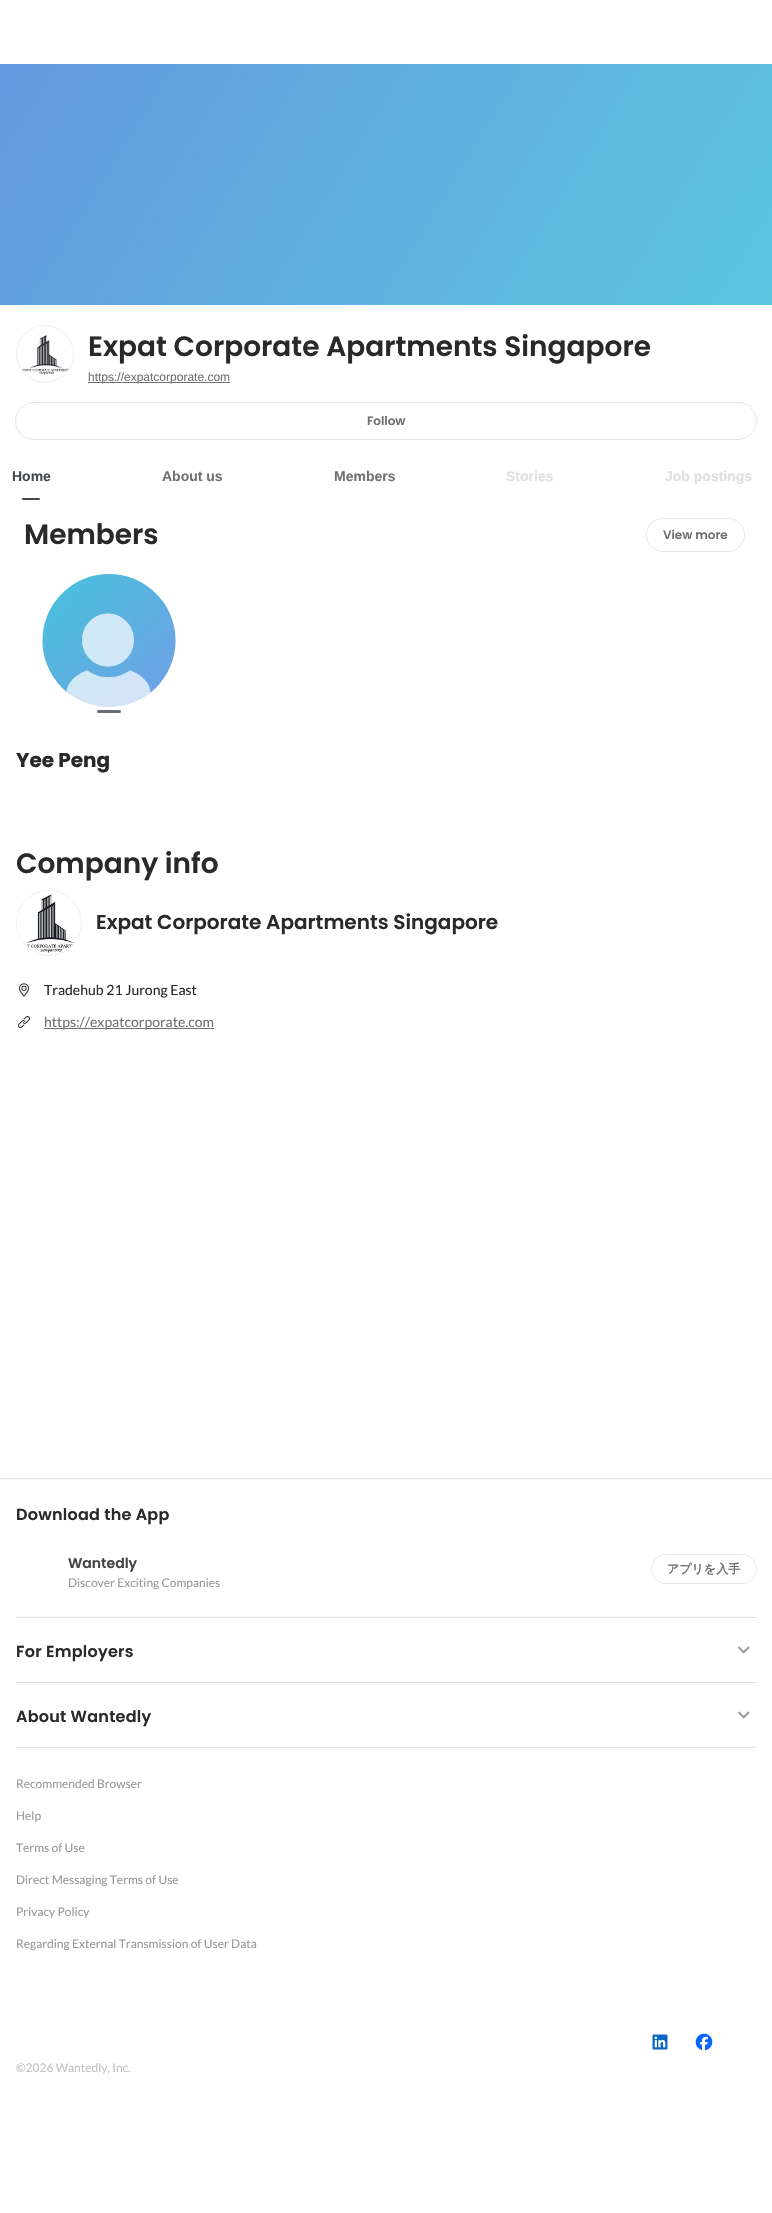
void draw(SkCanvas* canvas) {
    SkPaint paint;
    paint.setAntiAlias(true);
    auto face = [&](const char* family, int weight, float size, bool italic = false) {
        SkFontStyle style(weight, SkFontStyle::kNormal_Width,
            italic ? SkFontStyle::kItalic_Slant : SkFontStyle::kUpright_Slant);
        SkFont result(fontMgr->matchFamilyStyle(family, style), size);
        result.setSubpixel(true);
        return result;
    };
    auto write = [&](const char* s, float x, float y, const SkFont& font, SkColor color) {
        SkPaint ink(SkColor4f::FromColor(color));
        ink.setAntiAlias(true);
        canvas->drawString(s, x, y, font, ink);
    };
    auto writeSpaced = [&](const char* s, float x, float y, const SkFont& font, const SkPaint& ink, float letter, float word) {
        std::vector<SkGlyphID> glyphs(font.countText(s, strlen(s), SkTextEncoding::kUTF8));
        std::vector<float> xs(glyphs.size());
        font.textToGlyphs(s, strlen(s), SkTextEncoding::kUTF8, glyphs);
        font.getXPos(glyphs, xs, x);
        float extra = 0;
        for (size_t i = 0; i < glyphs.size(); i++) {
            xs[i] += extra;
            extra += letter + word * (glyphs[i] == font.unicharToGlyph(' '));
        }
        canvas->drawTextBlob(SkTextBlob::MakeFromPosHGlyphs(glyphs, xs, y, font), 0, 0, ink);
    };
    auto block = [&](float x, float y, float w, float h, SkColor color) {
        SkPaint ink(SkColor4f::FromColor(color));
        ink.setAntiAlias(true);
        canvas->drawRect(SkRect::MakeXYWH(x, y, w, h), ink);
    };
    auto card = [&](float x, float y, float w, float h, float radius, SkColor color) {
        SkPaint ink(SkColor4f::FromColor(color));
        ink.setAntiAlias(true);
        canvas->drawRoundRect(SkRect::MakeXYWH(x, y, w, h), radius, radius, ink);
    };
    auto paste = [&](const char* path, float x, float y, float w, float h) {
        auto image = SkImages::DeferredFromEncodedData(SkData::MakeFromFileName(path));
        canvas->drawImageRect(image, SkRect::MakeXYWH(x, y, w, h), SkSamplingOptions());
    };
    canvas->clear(SK_ColorWHITE);
    paste("pic1.png", 0, 64, 772, 241);
    paint.setStyle(SkPaint::kStroke_Style);
    paint.setStrokeWidth(1);
    paint.setColor(SkColorSetRGB(240, 240, 240));
    canvas->drawCircle(45, 354, 28.5f, paint);
    paste("pic2.png", 22, 335, 47, 40);
    auto kFont1 = face("Poppins", 600, 28);
    write("Expat Corporate Apartments Singapore", 88, 356, kFont1, SkColorSetRGB(41, 41, 41));
    block(88, 382, 142, 1, SkColorSetRGB(112, 112, 112));
    auto kFont2 = face("Liberation Sans", 400, 12);
    write("https://expatcorporate.com", 88, 381, kFont2, SkColorSetRGB(112, 112, 112));
    paint.setColor(SkColorSetRGB(230, 230, 230));
    canvas->drawRoundRect(SkRect::MakeXYWH(15.5f, 402.5f, 741, 37), 18.5f, 18.5f, paint);
    auto kFont3 = face("Poppins", 600, 12);
    write("Follow", 367, 425, kFont3, SkColorSetRGB(112, 112, 112));
    auto kFont4 = face("Liberation Sans", 700, 14);
    write("Home", 12, 481, kFont4, SkColorSetRGB(69, 73, 75));
    card(22, 498, 18, 2, 1, SkColorSetRGB(69, 73, 75));
    write("About us", 162, 481, kFont4, SkColorSetRGB(112, 112, 112));
    write("Members", 334, 481, kFont4, SkColorSetRGB(112, 112, 112));
    write("Stories", 506, 481, kFont4, SkColorSetRGB(224, 224, 224));
    write("Job postings", 665, 481, kFont4, SkColorSetRGB(224, 224, 224));
    write("Members", 24, 544, kFont1, SkColorSetRGB(41, 41, 41));
    canvas->drawRoundRect(SkRect::MakeXYWH(646.5f, 518.5f, 98, 33), 16.5f, 16.5f, paint);
    card(647, 519, 97, 32, 16, SK_ColorWHITE);
    write("View more", 663, 539, kFont3, SkColorSetRGB(112, 112, 112));
    paste("pic3.png", 42, 574, 134, 133);
    card(97, 710, 24, 3, 1.5f, SkColorSetRGB(106, 110, 113));
    auto kFont5 = face("Poppins", 700, 20);
    write("Yee Peng", 16, 767, kFont5, SkColorSetRGB(41, 41, 41));
    write("Company info", 16, 873, kFont1, SkColorSetRGB(41, 41, 41));
    paint.setColor(SkColorSetRGB(240, 240, 240));
    canvas->drawCircle(49, 923, 32.5f, paint);
    paste("pic4.png", 17, 891, 57, 62);
    auto kFont6 = face("Poppins", 600, 20);
    write("Expat Corporate Apartments Singapore", 96, 929, kFont6, SkColorSetRGB(41, 41, 41));
    paste("pic5.png", 19, 983, 10, 14);
    auto kFont7 = face("Lato", 400, 14);
    write("Tradehub 21 Jurong East", 44, 995, kFont7, SkColorSetRGB(41, 41, 41));
    paste("pic6.png", 18, 1016, 12, 12);
    block(44, 1028, 170, 1, SkColorSetRGB(112, 112, 112));
    write("https://expatcorporate.com", 44, 1027, kFont7, SkColorSetRGB(112, 112, 112));
    block(0, 1478, 772, 1, SkColorSetRGB(224, 224, 224));
    auto kFont8 = face("Poppins", 600, 16);
    paint.setStyle(SkPaint::kFill_Style);
    paint.setColor(SkColorSetRGB(41, 41, 41));
    writeSpaced("Download the App", 16, 1520, kFont8, paint, 0.25f, 0);
    auto kFont9 = face("Poppins", 600, 14);
    write("Wantedly", 68, 1568, kFont9, SkColorSetRGB(66, 66, 66));
    auto kFont10 = face("Lato", 400, 12);
    write("Discover Exciting Companies", 68, 1587, kFont10, SkColorSetRGB(153, 153, 153));
    paint.setStyle(SkPaint::kStroke_Style);
    paint.setColor(SkColorSetRGB(230, 230, 230));
    canvas->drawRoundRect(SkRect::MakeXYWH(651.5f, 1554.5f, 105, 29), 14.5f, 14.5f, paint);
    card(652, 1555, 104, 28, 14, SK_ColorWHITE);
    auto kFont11 = face("WenQuanYi Zen Hei", 700, 12);
    write("アプリを入手", 667, 1573, kFont11, SkColorSetRGB(112, 112, 112));
    block(16, 1617, 740, 1, SkColorSetRGB(224, 224, 224));
    paint.setStyle(SkPaint::kFill_Style);
    paint.setColor(SkColorSetRGB(41, 41, 41));
    writeSpaced("For Employers", 16, 1657, kFont8, paint, 0.25f, 0);
    paste("pic7.png", 737, 1646, 13, 8);
    block(16, 1682, 740, 1, SkColorSetRGB(224, 224, 224));
    writeSpaced("About Wantedly", 16, 1722, kFont8, paint, 0.25f, 0);
    paste("pic7.png", 737, 1711, 13, 8);
    block(16, 1747, 740, 1, SkColorSetRGB(224, 224, 224));
    write("Recommended Browser", 16, 1788, kFont10, SkColorSetRGB(153, 153, 153));
    write("Help", 16, 1820, kFont10, SkColorSetRGB(153, 153, 153));
    write("Terms of Use", 16, 1852, kFont10, SkColorSetRGB(153, 153, 153));
    write("Direct Messaging Terms of Use", 16, 1884, kFont10, SkColorSetRGB(153, 153, 153));
    write("Privacy Policy", 16, 1916, kFont10, SkColorSetRGB(153, 153, 153));
    write("Regarding External Transmission of User Data", 16, 1948, kFont10, SkColorSetRGB(153, 153, 153));
    paste("pic8.png", 652, 2034, 16, 16);
    paste("pic9.png", 695, 2033, 18, 18);
    write("©2026 Wantedly, Inc.", 16, 2072, kFont10, SkColorSetRGB(194, 194, 194));
}
